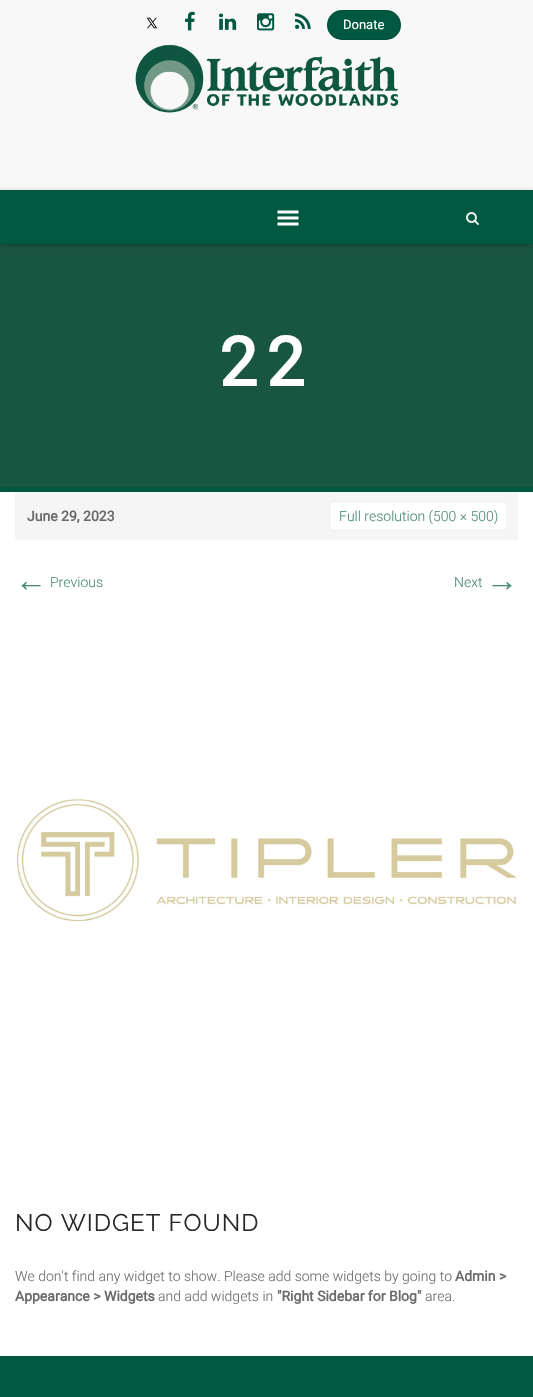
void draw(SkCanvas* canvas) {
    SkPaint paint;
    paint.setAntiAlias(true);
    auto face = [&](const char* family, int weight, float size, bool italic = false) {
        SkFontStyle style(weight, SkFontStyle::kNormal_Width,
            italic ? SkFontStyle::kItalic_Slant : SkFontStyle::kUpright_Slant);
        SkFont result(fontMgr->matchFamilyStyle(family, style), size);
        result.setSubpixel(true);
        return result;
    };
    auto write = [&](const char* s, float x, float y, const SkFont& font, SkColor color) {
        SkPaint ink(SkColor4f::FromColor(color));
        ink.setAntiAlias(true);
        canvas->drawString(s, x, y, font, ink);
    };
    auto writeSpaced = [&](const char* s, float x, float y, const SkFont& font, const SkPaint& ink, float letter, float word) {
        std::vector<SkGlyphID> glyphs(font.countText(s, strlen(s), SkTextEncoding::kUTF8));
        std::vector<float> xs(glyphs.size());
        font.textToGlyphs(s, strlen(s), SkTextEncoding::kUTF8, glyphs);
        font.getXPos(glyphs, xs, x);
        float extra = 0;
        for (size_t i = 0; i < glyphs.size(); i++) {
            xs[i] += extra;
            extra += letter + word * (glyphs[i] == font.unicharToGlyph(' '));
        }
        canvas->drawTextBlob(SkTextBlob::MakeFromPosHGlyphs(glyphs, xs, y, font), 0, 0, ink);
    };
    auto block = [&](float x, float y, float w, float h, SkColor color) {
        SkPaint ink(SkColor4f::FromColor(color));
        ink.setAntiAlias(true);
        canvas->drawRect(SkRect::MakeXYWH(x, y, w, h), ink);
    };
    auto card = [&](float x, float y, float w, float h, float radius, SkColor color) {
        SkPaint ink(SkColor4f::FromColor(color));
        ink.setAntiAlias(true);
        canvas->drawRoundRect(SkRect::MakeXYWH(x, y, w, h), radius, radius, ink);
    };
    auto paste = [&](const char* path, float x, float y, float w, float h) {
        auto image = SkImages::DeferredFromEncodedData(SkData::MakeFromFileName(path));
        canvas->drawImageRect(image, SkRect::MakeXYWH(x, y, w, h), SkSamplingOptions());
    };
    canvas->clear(SkColorSetRGB(248, 248, 248));
    paste("pic1.png", 146, 17, 12, 12);
    paste("pic2.png", 185, 11, 10, 20);
    paste("pic3.png", 219, 13, 18, 17);
    paste("pic4.png", 257, 13, 18, 18);
    paste("pic5.png", 295, 13, 16, 16);
    card(327, 10, 74, 30, 15, SkColorSetRGB(0, 88, 65));
    paint.setStyle(SkPaint::kStroke_Style);
    paint.setStrokeWidth(1);
    paint.setColor(SkColorSetARGB(26, 0, 0, 0));
    canvas->drawRoundRect(SkRect::MakeXYWH(327.5f, 10.5f, 73, 29), 14.5f, 14.5f, paint);
    auto kFont1 = face("Roboto", 400, 13);
    write("Donate", 343, 29, kFont1, SK_ColorWHITE);
    paste("pic6.png", 135, 44, 264, 69);
    block(0, 244, 533, 243, SkColorSetRGB(24, 86, 65));
    paint.setStyle(SkPaint::kFill_Style);
    paint.setColor(SkColorSetARGB(51, 0, 0, 0));
    paint.setMaskFilter(SkMaskFilter::MakeBlur(kNormal_SkBlurStyle, 2.5f));
    canvas->drawRect(SkRect::MakeXYWH(0, 191, 533, 55), paint);
    paint.setMaskFilter(nullptr);
    block(0, 190, 533, 54, SkColorSetRGB(0, 88, 65));
    block(0, 189, 533, 1, SkColorSetRGB(234, 234, 234));
    paste("pic7.png", 277, 210, 22, 16);
    paste("pic8.png", 466, 212, 13, 13);
    block(0, 487, 533, 5, SkColorSetRGB(0, 88, 65));
    auto kFont2 = face("Roboto", 700, 68);
    paint.setColor(SK_ColorWHITE);
    writeSpaced("22", 219, 386, kFont2, paint, 9, 0);
    block(0, 492, 533, 864, SK_ColorWHITE);
    block(15, 492, 503, 48, SkColorSetRGB(245, 245, 245));
    auto kFont3 = face("Roboto", 700, 14);
    write("June 29, 2023", 27, 521, kFont3, SkColorSetRGB(107, 107, 107));
    block(331, 503, 175, 26, SK_ColorWHITE);
    auto kFont4 = face("Roboto", 300, 14);
    write("Full resolution (500 × 500)", 339, 521, kFont4, SkColorSetRGB(76, 138, 122));
    auto kFont5 = face("Liberation Sans", 400, 32);
    write("←", 15, 591, kFont5, SkColorSetRGB(76, 138, 122));
    write("Previous", 50, 587, kFont4, SkColorSetRGB(76, 138, 122));
    write("Next", 454, 587, kFont4, SkColorSetRGB(76, 138, 122));
    write("→", 486, 591, kFont5, SkColorSetRGB(76, 138, 122));
    paste("pic9.png", 17, 799, 500, 123);
    auto kFont6 = face("Raleway", 400, 24);
    paint.setColor(SkColorSetRGB(40, 40, 40));
    writeSpaced("NO WIDGET FOUND", 15, 1231, kFont6, paint, 1, 0);
    write("We don't find any widget to show. Please add some widgets by going to", 15, 1281, kFont4, SkColorSetRGB(107, 107, 107));
    write("Admin >", 455, 1281, kFont3, SkColorSetRGB(107, 107, 107));
    write("Appearance > Widgets", 15, 1301, kFont3, SkColorSetRGB(107, 107, 107));
    write("and add widgets in", 158, 1301, kFont4, SkColorSetRGB(107, 107, 107));
    write("\"Right Sidebar for Blog\"", 277, 1301, kFont3, SkColorSetRGB(107, 107, 107));
    write("area.", 425, 1301, kFont4, SkColorSetRGB(107, 107, 107));
    block(0, 1356, 533, 41, SkColorSetRGB(0, 88, 65));
}
